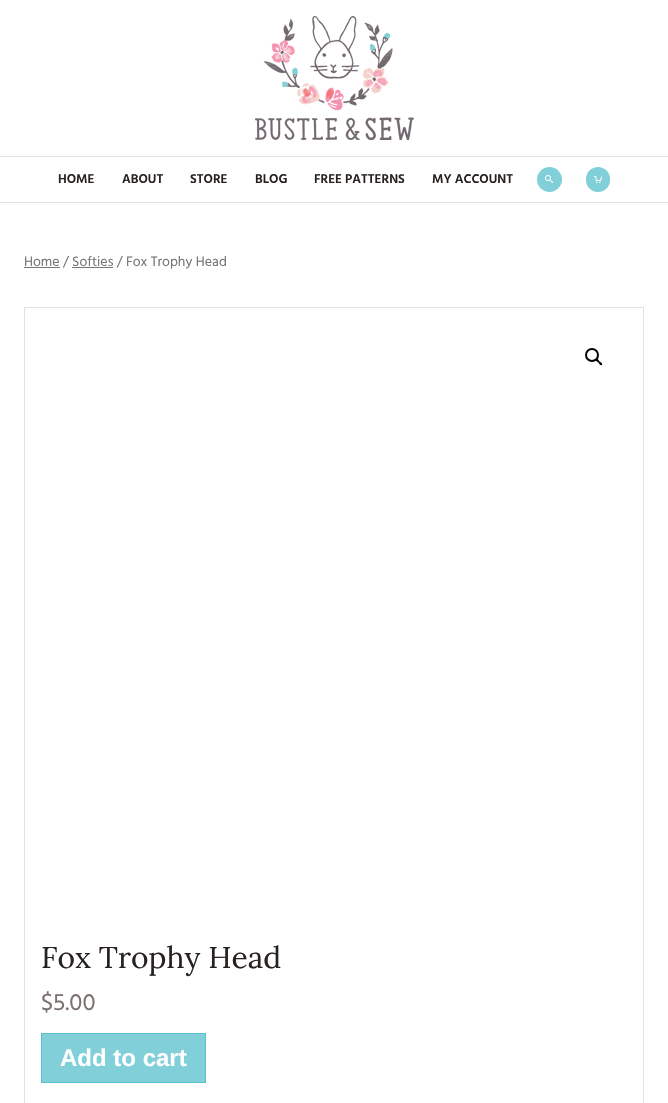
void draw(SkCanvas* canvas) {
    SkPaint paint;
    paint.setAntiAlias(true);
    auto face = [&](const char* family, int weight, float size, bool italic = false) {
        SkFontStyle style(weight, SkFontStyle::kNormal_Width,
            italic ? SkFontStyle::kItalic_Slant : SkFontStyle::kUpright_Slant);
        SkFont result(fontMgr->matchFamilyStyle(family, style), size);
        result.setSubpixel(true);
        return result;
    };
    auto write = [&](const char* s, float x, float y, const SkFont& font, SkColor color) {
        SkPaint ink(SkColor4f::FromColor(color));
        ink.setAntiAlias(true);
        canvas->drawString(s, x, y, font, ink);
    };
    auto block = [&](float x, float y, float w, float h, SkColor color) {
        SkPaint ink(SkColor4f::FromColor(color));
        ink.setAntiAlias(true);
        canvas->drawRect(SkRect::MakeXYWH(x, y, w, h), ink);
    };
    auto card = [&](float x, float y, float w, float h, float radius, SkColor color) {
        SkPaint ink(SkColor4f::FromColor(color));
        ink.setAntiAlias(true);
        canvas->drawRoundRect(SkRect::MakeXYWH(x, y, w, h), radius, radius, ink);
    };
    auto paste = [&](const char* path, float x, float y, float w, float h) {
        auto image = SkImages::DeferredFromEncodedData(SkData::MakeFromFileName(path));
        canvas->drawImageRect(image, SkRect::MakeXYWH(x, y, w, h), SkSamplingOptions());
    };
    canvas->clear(SK_ColorWHITE);
    paste("pic1.png", 255, 16, 159, 124);
    block(0, 156, 668, 1, SkColorSetRGB(225, 227, 223));
    block(0, 202, 668, 1, SkColorSetRGB(225, 227, 223));
    auto kFont1 = face("Hind", 600, 13);
    write("HOME", 58, 183, kFont1, SkColorSetRGB(39, 34, 32));
    write("ABOUT", 122, 183, kFont1, SkColorSetRGB(39, 34, 32));
    write("STORE", 190, 183, kFont1, SkColorSetRGB(39, 34, 32));
    write("BLOG", 255, 183, kFont1, SkColorSetRGB(39, 34, 32));
    write("FREE PATTERNS", 314, 183, kFont1, SkColorSetRGB(39, 34, 32));
    write("MY ACCOUNT", 432, 183, kFont1, SkColorSetRGB(39, 34, 32));
    paint.setColor(SkColorSetRGB(128, 207, 217));
    canvas->drawCircle(549.5f, 179.5f, 12.5f, paint);
    paste("pic2.png", 545, 175, 9, 9);
    card(586, 167, 24, 25, 12, SkColorSetRGB(128, 207, 217));
    paste("pic3.png", 594, 176, 8, 8);
    block(24, 267, 36, 1, SkColorSetRGB(118, 118, 118));
    auto kFont2 = face("Hind", 400, 14);
    write("Home / Softies / Fox Trophy Head", 24, 266, kFont2, SkColorSetRGB(118, 118, 118));
    block(72, 267, 41, 1, SkColorSetRGB(118, 118, 118));
    paint.setStyle(SkPaint::kStroke_Style);
    paint.setStrokeWidth(1);
    paint.setColor(SkColorSetRGB(225, 227, 223));
    canvas->drawRect(SkRect::MakeXYWH(24.5f, 307.5f, 619, 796), paint);
    paint.setStrokeWidth(2);
    paint.setColor(SK_ColorBLACK);
    canvas->drawCircle(592, 355, 6, paint);
    paint.setStyle(SkPaint::kFill_Style);
    canvas->drawPath(SkPathBuilder().moveTo(596, 359).cubicTo(597.5f, 358, 599, 360.5f, 599.5f, 361.5f).cubicTo(600.5f, 362, 603, 363.5f, 602, 365).cubicTo(600.5f, 366, 599, 363.5f, 598.5f, 362.5f).cubicTo(597.5f, 362, 595, 360.5f, 596, 359).close().detach(), paint);
    auto kFont3 = face("Lora", 400, 30);
    write("Fox Trophy Head", 41, 968, kFont3, SkColorSetRGB(39, 34, 32));
    auto kFont4 = face("Hind", 400, 24);
    write("$5.00", 41, 1010, kFont4, SkColorSetRGB(123, 114, 111));
    paint.setColor(SkColorSetRGB(128, 207, 217));
    canvas->drawRect(SkRect::MakeXYWH(41.5f, 1033.5f, 164, 49), paint);
    paint.setStyle(SkPaint::kStroke_Style);
    paint.setStrokeWidth(1);
    paint.setColor(SkColorSetRGB(89, 192, 205));
    canvas->drawRect(SkRect::MakeXYWH(41.5f, 1033.5f, 164, 49), paint);
    auto kFont5 = face("Liberation Sans", 700, 24);
    write("Add to cart", 60, 1066, kFont5, SK_ColorWHITE);
}
